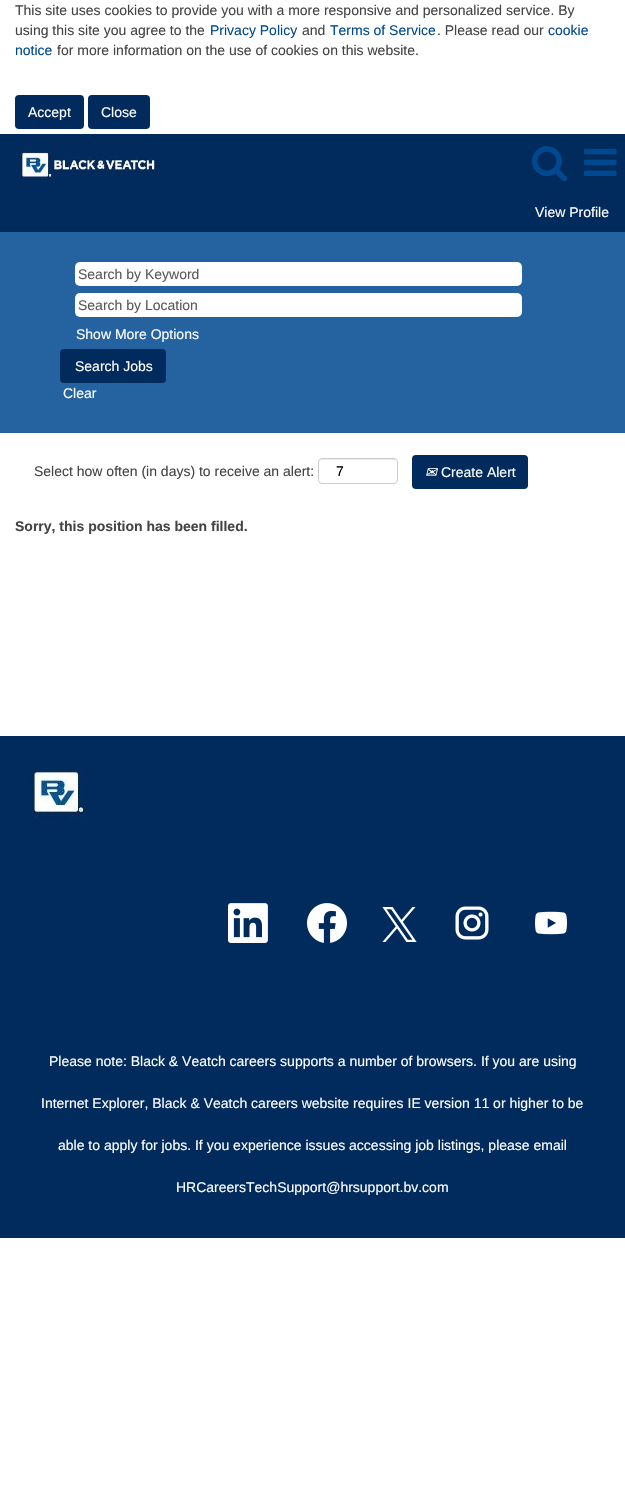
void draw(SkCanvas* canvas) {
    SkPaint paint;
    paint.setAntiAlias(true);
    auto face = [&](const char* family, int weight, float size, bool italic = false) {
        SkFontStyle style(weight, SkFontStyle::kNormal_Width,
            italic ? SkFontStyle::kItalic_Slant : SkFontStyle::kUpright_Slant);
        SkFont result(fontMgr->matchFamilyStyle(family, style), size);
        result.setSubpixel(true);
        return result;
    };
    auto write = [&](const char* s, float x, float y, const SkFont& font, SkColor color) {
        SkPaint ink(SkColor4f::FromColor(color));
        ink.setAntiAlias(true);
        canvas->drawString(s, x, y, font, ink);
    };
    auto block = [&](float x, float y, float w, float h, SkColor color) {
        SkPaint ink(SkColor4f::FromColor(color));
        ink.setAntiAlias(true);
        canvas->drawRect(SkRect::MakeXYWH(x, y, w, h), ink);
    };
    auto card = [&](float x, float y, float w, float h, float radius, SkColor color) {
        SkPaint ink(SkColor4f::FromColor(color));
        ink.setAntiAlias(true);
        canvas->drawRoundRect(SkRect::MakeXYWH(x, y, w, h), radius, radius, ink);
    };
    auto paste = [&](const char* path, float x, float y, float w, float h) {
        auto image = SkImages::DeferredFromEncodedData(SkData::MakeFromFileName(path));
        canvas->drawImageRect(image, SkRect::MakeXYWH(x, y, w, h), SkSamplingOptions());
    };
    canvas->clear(SK_ColorWHITE);
    auto kFont1 = face("Liberation Sans", 400, 14);
    write("This site uses cookies to provide you with a more responsive and personalized service. By", 15, 15, kFont1, SkColorSetRGB(68, 68, 68));
    write("using this site you agree to the", 15, 35, kFont1, SkColorSetRGB(68, 68, 68));
    write("Privacy Policy", 210, 35, kFont1, SkColorSetRGB(0, 73, 144));
    write("and", 302, 35, kFont1, SkColorSetRGB(68, 68, 68));
    write("Terms of Service", 330, 35, kFont1, SkColorSetRGB(0, 73, 144));
    write(". Please read our", 437, 35, kFont1, SkColorSetRGB(68, 68, 68));
    write("cookie", 548, 35, kFont1, SkColorSetRGB(0, 73, 144));
    write("notice", 15, 55, kFont1, SkColorSetRGB(0, 73, 144));
    write("for more information on the use of cookies on this website.", 57, 55, kFont1, SkColorSetRGB(68, 68, 68));
    card(15, 95, 69, 34, 4, SkColorSetRGB(0, 43, 92));
    write("Accept", 28, 117, kFont1, SK_ColorWHITE);
    card(88, 95, 62, 34, 4, SkColorSetRGB(0, 43, 92));
    write("Close", 101, 117, kFont1, SK_ColorWHITE);
    block(0, 134, 625, 98, SkColorSetRGB(0, 43, 92));
    paste("pic1.png", 16, 151, 143, 29);
    paste("pic2.png", 532, 146, 36, 36);
    paste("pic3.png", 584, 148, 33, 28);
    write("View Profile", 535, 217, kFont1, SK_ColorWHITE);
    block(0, 232, 625, 201, SkColorSetRGB(36, 99, 160));
    card(75, 262, 447, 24, 5, SK_ColorWHITE);
    write("Search by Keyword", 78, 279, kFont1, SkColorSetRGB(89, 89, 89));
    card(75, 293, 447, 24, 5, SK_ColorWHITE);
    write("Search by Location", 78, 310, kFont1, SkColorSetRGB(89, 89, 89));
    write("Show More Options", 76, 339, kFont1, SK_ColorWHITE);
    card(60, 349, 106, 34, 4, SkColorSetRGB(0, 43, 92));
    write("Search Jobs", 75, 371, kFont1, SK_ColorWHITE);
    write("Clear", 63, 398, kFont1, SK_ColorWHITE);
    write("Select how often (in days) to receive an alert:", 34, 476, kFont1, SkColorSetRGB(68, 68, 68));
    paint.setColor(SkColorSetRGB(236, 236, 236));
    canvas->drawPath(SkPathBuilder().moveTo(322, 460).lineTo(394, 460).cubicTo(396, 460, 397, 461, 397, 463).cubicTo(397, 456, 386, 459, 382, 459).lineTo(334, 459).cubicTo(330, 459, 319, 456, 319, 463).cubicTo(319, 461, 320, 460, 322, 460).close().detach(), paint);
    paint.setStyle(SkPaint::kStroke_Style);
    paint.setStrokeWidth(1);
    paint.setColor(SkColorSetRGB(204, 204, 204));
    canvas->drawRoundRect(SkRect::MakeXYWH(318.5f, 458.5f, 79, 25), 3.5f, 3.5f, paint);
    write("7", 336, 476, kFont1, SK_ColorBLACK);
    card(412, 455, 116, 34, 4, SkColorSetRGB(0, 43, 92));
    auto kFont2 = face("DejaVu Sans", 400, 14, true);
    write("✉", 425, 477, kFont2, SK_ColorWHITE);
    write("Create Alert", 441, 477, kFont1, SK_ColorWHITE);
    auto kFont3 = face("Liberation Sans", 700, 14);
    write("Sorry, this position has been filled.", 15, 531, kFont3, SkColorSetRGB(68, 68, 68));
    block(0, 736, 625, 502, SkColorSetRGB(0, 43, 92));
    paste("pic4.png", 31, 767, 54, 51);
    paste("pic5.png", 228, 903, 40, 40);
    paste("pic6.png", 307, 903, 40, 40);
    paste("pic7.png", 382, 907, 35, 35);
    paste("pic8.png", 455, 906, 34, 34);
    paste("pic9.png", 535, 911, 32, 24);
    write("Please note: Black & Veatch careers supports a number of browsers. If you are using", 49, 1066, kFont1, SK_ColorWHITE);
    write("Internet Explorer, Black & Veatch careers website requires IE version 11 or higher to be", 41, 1108, kFont1, SK_ColorWHITE);
    write("able to apply for jobs. If you experience issues accessing job listings, please email", 58, 1150, kFont1, SK_ColorWHITE);
    write("HRCareersTechSupport@hrsupport.bv.com", 176, 1192, kFont1, SK_ColorWHITE);
}
